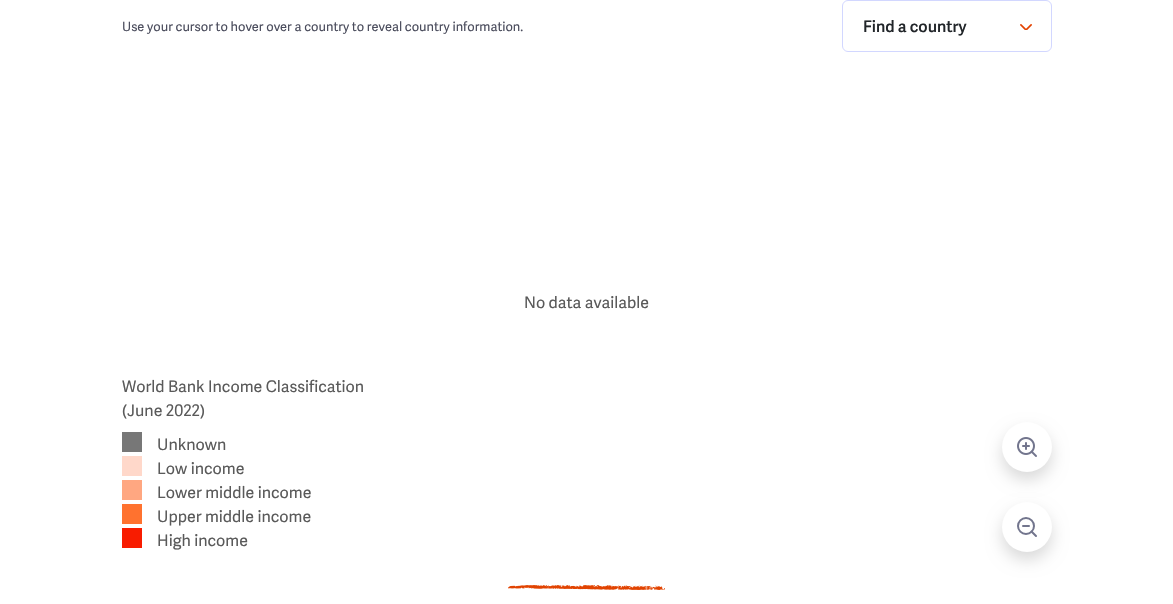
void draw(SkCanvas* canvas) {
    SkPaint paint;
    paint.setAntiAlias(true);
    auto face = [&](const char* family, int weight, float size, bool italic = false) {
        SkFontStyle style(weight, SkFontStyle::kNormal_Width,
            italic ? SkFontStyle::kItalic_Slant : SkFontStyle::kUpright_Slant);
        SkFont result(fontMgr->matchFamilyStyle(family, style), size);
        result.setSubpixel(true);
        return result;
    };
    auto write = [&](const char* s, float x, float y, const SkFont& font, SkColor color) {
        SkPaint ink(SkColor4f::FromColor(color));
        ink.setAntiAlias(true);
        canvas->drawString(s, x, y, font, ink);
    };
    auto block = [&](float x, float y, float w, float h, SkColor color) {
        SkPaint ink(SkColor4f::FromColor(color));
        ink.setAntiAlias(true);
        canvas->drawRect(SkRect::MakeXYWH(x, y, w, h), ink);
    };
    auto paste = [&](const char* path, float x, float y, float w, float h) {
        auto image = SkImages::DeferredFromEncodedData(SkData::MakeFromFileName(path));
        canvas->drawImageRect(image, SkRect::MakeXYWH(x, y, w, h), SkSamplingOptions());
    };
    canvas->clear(SK_ColorWHITE);
    paste("pic1.png", 508, 584, 157, 6);
    auto kFont1 = face("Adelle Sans", 400, 12.8f);
    write("Use your cursor to hover over a country to reveal country information.", 122, 31, kFont1, SkColorSetRGB(75, 77, 93));
    paint.setStyle(SkPaint::kStroke_Style);
    paint.setStrokeWidth(1);
    paint.setColor(SkColorSetRGB(210, 215, 255));
    canvas->drawRoundRect(SkRect::MakeXYWH(842.5f, 0.5f, 209, 51), 5.5f, 5.5f, paint);
    auto kFont2 = face("Adelle Sans", 600, 16);
    write("Find a country", 863, 32, kFont2, SkColorSetRGB(33, 37, 41));
    paste("pic2.png", 1020, 24, 12, 6);
    auto kFont3 = face("Adelle Sans", 400, 16);
    write("No data available", 524, 308, kFont3, SkColorSetRGB(90, 90, 90));
    write("World Bank Income Classification", 122, 392, kFont3, SkColorSetRGB(90, 90, 90));
    write("(June 2022)", 122, 416, kFont3, SkColorSetRGB(90, 90, 90));
    block(122, 432, 20, 20, SkColorSetRGB(119, 119, 119));
    write("Unknown", 157, 450, kFont3, SkColorSetRGB(90, 90, 90));
    block(122, 456, 20, 20, SkColorSetRGB(255, 216, 202));
    write("Low income", 157, 474, kFont3, SkColorSetRGB(90, 90, 90));
    block(122, 480, 20, 20, SkColorSetRGB(255, 167, 129));
    write("Lower middle income", 157, 498, kFont3, SkColorSetRGB(90, 90, 90));
    block(122, 504, 20, 20, SkColorSetRGB(255, 114, 47));
    write("Upper middle income", 157, 522, kFont3, SkColorSetRGB(90, 90, 90));
    block(122, 528, 20, 20, SkColorSetRGB(248, 28, 0));
    write("High income", 157, 546, kFont3, SkColorSetRGB(90, 90, 90));
    paint.setStyle(SkPaint::kFill_Style);
    paint.setColor(SkColorSetARGB(38, 0, 0, 0));
    paint.setMaskFilter(SkMaskFilter::MakeBlur(kNormal_SkBlurStyle, 8));
    canvas->drawRoundRect(SkRect::MakeXYWH(1002, 430, 50, 50), 25, 25, paint);
    paint.setMaskFilter(nullptr);
    paint.setColor(SK_ColorWHITE);
    canvas->drawCircle(1027, 447, 25, paint);
    paste("pic3.png", 1017, 437, 20, 20);
    paint.setColor(SkColorSetARGB(38, 0, 0, 0));
    paint.setMaskFilter(SkMaskFilter::MakeBlur(kNormal_SkBlurStyle, 8));
    canvas->drawRoundRect(SkRect::MakeXYWH(1002, 510, 50, 50), 25, 25, paint);
    paint.setMaskFilter(nullptr);
    paint.setColor(SK_ColorWHITE);
    canvas->drawCircle(1027, 527, 25, paint);
    paint.setStyle(SkPaint::kStroke_Style);
    paint.setStrokeWidth(2);
    paint.setColor(SkColorSetRGB(114, 117, 141));
    canvas->drawCircle(1026, 526, 8, paint);
    paint.setStrokeCap(SkPaint::kRound_Cap);
    paint.setStrokeJoin(SkPaint::kRound_Join);
    canvas->drawPath(SkPathBuilder().moveTo(1036, 536).lineTo(1031.5f, 531.5f).moveTo(1023, 526).lineTo(1029, 526).detach(), paint);
}
